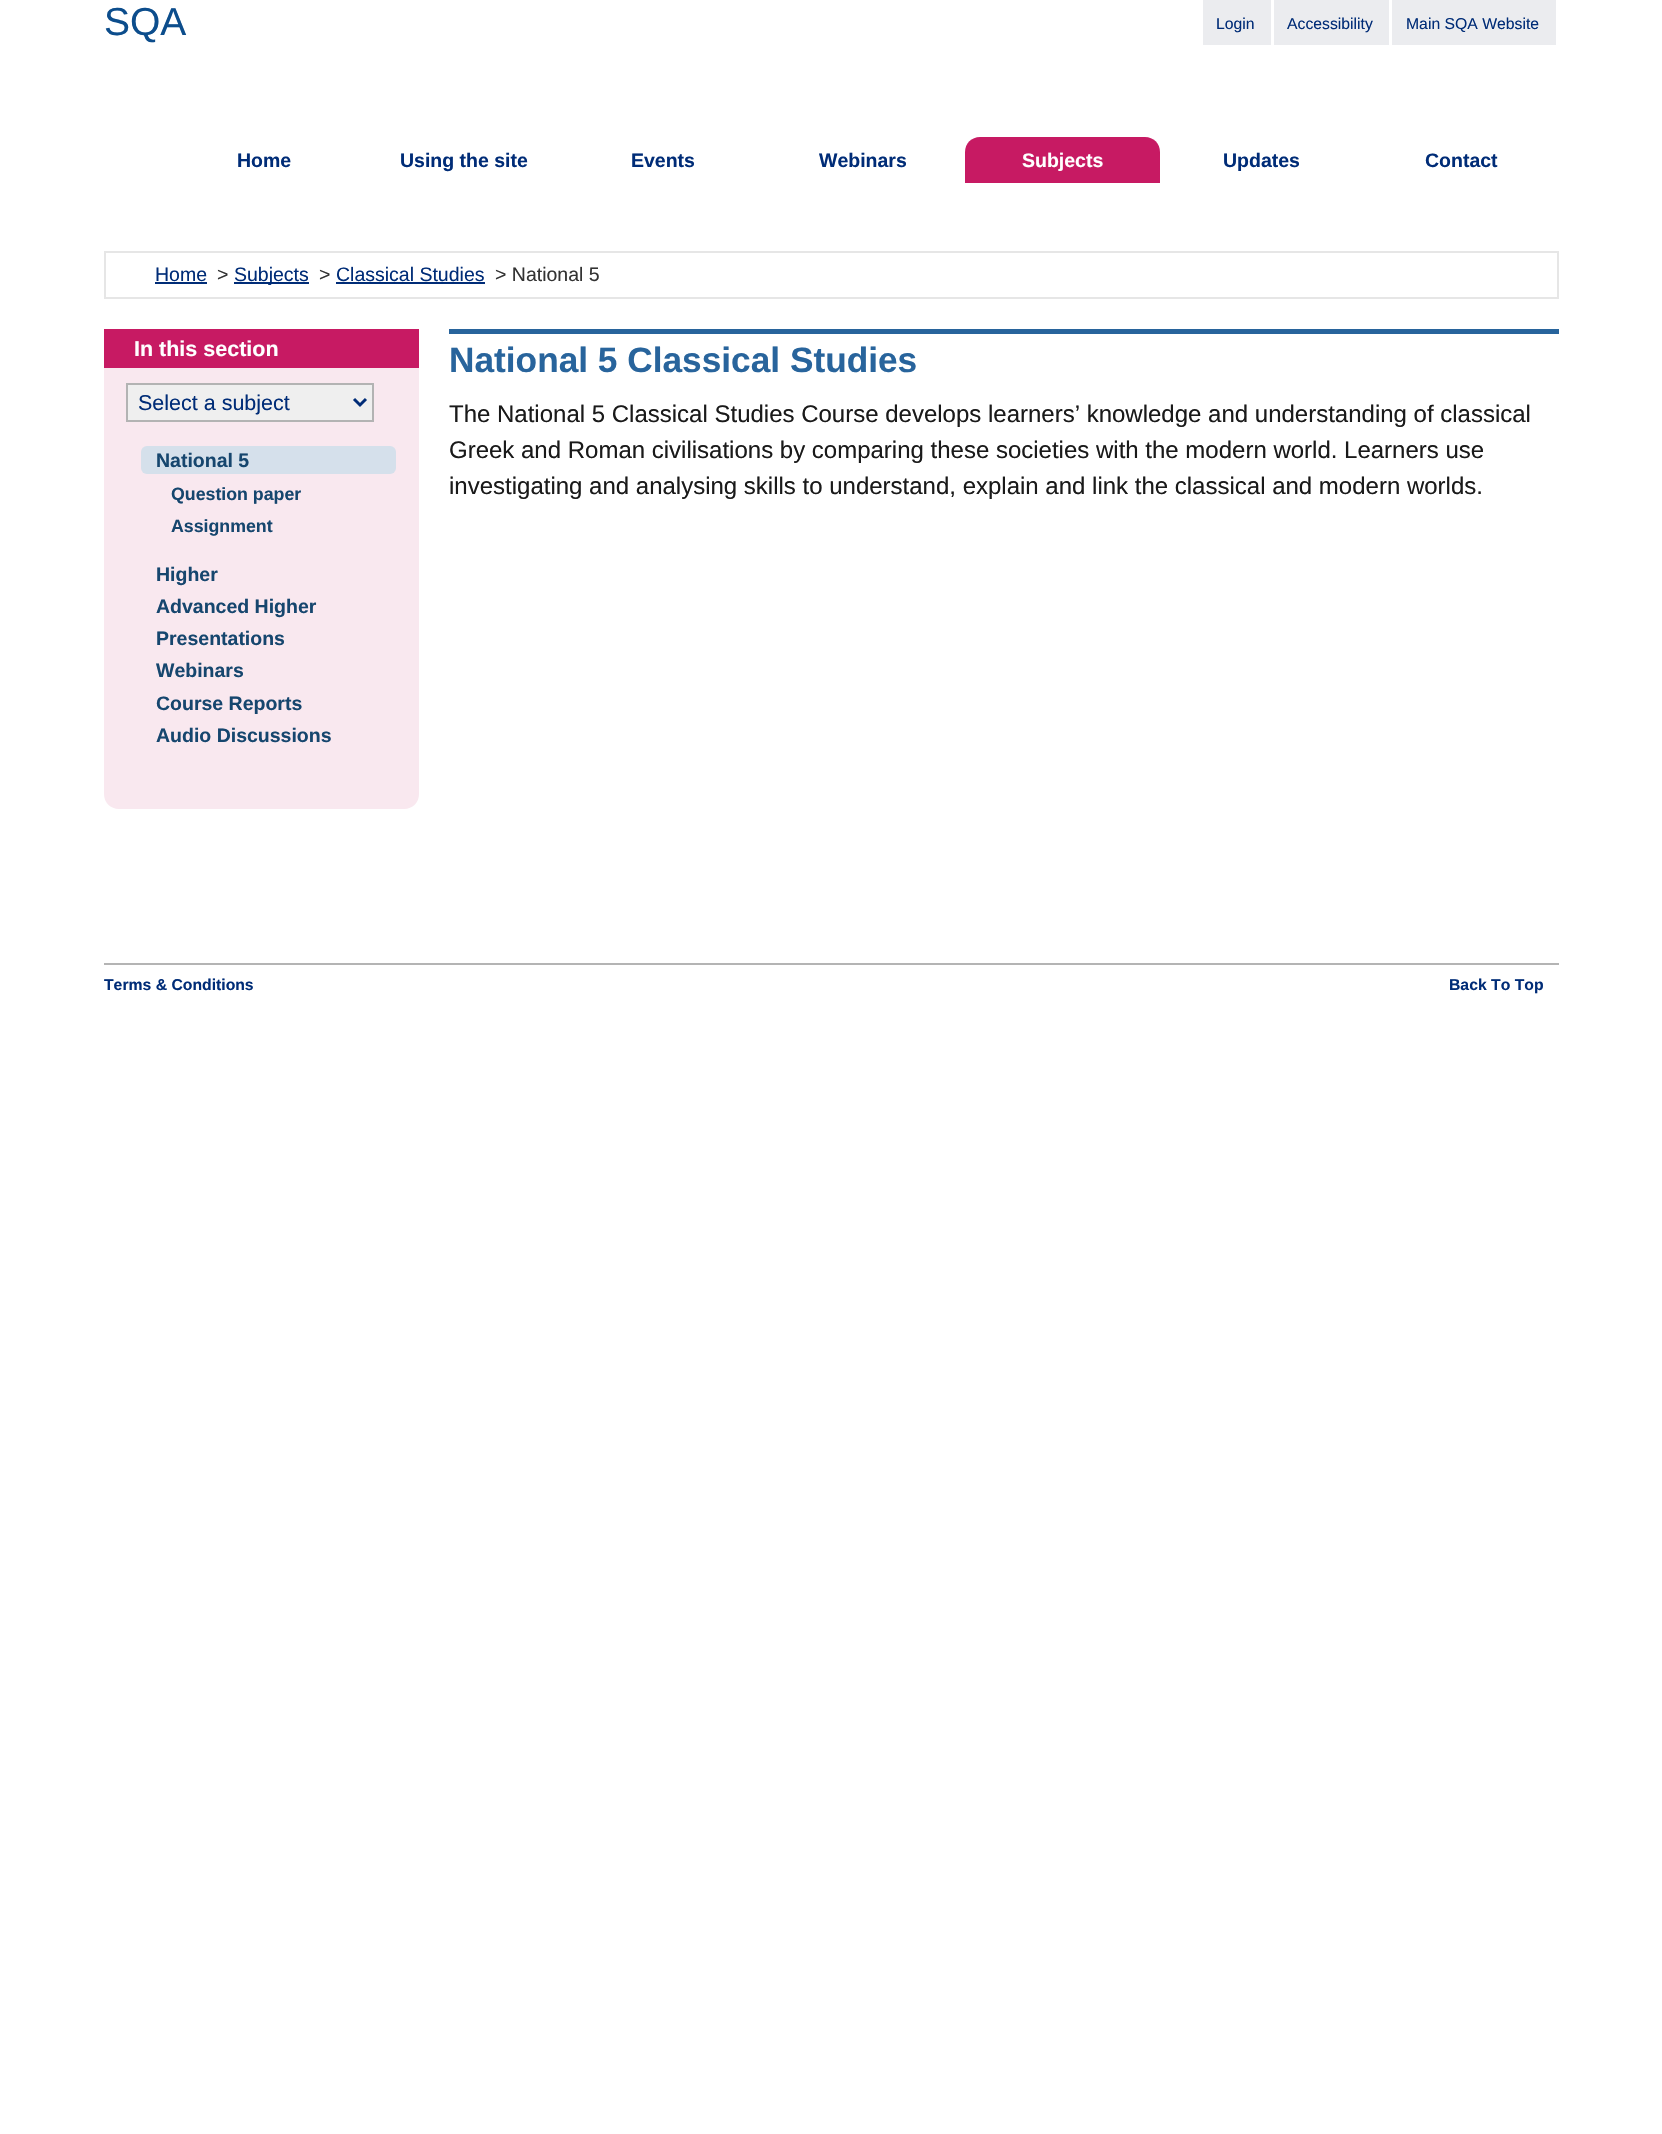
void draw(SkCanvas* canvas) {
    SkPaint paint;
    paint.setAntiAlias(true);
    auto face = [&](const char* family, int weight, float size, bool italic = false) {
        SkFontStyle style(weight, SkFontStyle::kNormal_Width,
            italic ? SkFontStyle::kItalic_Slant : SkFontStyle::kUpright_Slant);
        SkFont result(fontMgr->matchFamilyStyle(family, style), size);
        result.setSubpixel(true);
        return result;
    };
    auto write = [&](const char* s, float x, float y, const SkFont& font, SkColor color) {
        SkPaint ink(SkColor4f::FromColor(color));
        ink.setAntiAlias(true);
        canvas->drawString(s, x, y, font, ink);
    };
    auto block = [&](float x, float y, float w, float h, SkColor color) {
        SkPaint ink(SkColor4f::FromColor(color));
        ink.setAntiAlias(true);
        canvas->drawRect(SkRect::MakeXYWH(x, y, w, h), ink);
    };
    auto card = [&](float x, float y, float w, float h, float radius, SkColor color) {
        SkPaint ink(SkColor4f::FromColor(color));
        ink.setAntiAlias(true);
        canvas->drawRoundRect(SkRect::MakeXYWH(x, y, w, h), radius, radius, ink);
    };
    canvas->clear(SK_ColorWHITE);
    auto kFont1 = face("Liberation Sans", 400, 39);
    write("SQA", 104, 35, kFont1, SkColorSetRGB(12, 77, 140));
    block(1203, 0, 353, 45, SkColorSetRGB(235, 236, 239));
    block(1271, 0, 3, 45, SK_ColorWHITE);
    auto kFont2 = face("Liberation Sans", 400, 15.75f);
    write("Login", 1216, 29, kFont2, SkColorSetRGB(0, 44, 119));
    block(1389, 0, 3, 45, SK_ColorWHITE);
    write("Accessibility", 1287, 29, kFont2, SkColorSetRGB(0, 44, 119));
    write("Main SQA Website", 1406, 29, kFont2, SkColorSetRGB(0, 44, 119));
    auto kFont3 = face("Liberation Sans", 700, 19.5f);
    write("Home", 237, 167, kFont3, SkColorSetRGB(0, 44, 119));
    write("Using the site", 400, 167, kFont3, SkColorSetRGB(0, 44, 119));
    write("Events", 631, 167, kFont3, SkColorSetRGB(0, 44, 119));
    write("Webinars", 819, 167, kFont3, SkColorSetRGB(0, 44, 119));
    paint.setColor(SkColorSetRGB(199, 26, 99));
    canvas->drawPath(SkPathBuilder().moveTo(980, 137).lineTo(1145, 137).cubicTo(1153.5f, 137, 1160, 143.5f, 1160, 152).lineTo(1160, 183).lineTo(965, 183).lineTo(965, 152).cubicTo(965, 143.5f, 971.5f, 137, 980, 137).close().detach(), paint);
    write("Subjects", 1022, 167, kFont3, SK_ColorWHITE);
    write("Updates", 1223, 167, kFont3, SkColorSetRGB(0, 44, 119));
    write("Contact", 1425, 167, kFont3, SkColorSetRGB(0, 44, 119));
    paint.setStyle(SkPaint::kStroke_Style);
    paint.setStrokeWidth(2);
    paint.setColor(SkColorSetRGB(230, 230, 230));
    canvas->drawRect(SkRect::MakeXYWH(105, 252, 1453, 46), paint);
    auto kFont4 = face("Liberation Sans", 400, 19.5f);
    write("Home", 155, 281, kFont4, SkColorSetRGB(0, 44, 119));
    block(155, 282, 52, 2, SkColorSetRGB(0, 44, 119));
    write(">", 217, 281, kFont4, SkColorSetRGB(51, 51, 51));
    block(234, 282, 75, 2, SkColorSetRGB(0, 44, 119));
    write("Subjects", 234, 281, kFont4, SkColorSetRGB(0, 44, 119));
    write(">", 319, 281, kFont4, SkColorSetRGB(51, 51, 51));
    write("Classical Studies", 336, 281, kFont4, SkColorSetRGB(0, 44, 119));
    block(336, 282, 149, 2, SkColorSetRGB(0, 44, 119));
    write("> National 5", 495, 281, kFont4, SkColorSetRGB(51, 51, 51));
    paint.setStyle(SkPaint::kFill_Style);
    paint.setColor(SkColorSetRGB(249, 232, 239));
    canvas->drawPath(SkPathBuilder().moveTo(104, 329).lineTo(419, 329).lineTo(419, 794).cubicTo(419, 802.5f, 412.5f, 809, 404, 809).lineTo(119, 809).cubicTo(110.5f, 809, 104, 802.5f, 104, 794).close().detach(), paint);
    block(104, 329, 315, 39, SkColorSetRGB(199, 26, 99));
    auto kFont5 = face("Liberation Sans", 700, 21.5f);
    write("In this section", 134, 356, kFont5, SK_ColorWHITE);
    paint.setColor(SkColorSetRGB(239, 239, 239));
    canvas->drawRect(SkRect::MakeXYWH(127, 384, 246, 37), paint);
    paint.setStyle(SkPaint::kStroke_Style);
    paint.setColor(SkColorSetRGB(179, 179, 179));
    canvas->drawRect(SkRect::MakeXYWH(127, 384, 246, 37), paint);
    paint.setStrokeWidth(3);
    paint.setColor(SkColorSetRGB(0, 44, 119));
    canvas->drawPath(SkPathBuilder().moveTo(354, 399).lineTo(360, 405).lineTo(366, 399).detach(), paint);
    auto kFont6 = face("Liberation Sans", 400, 21.5f);
    write("Select a subject", 138, 410, kFont6, SkColorSetRGB(0, 44, 119));
    card(141, 446, 255, 28, 6, SkColorSetRGB(213, 224, 235));
    write("National 5", 156, 467, kFont3, SkColorSetRGB(22, 70, 110));
    auto kFont7 = face("Liberation Sans", 700, 17.75f);
    write("Question paper", 171, 500, kFont7, SkColorSetRGB(22, 70, 110));
    write("Assignment", 171, 532, kFont7, SkColorSetRGB(22, 70, 110));
    write("Higher", 156, 581, kFont3, SkColorSetRGB(22, 70, 110));
    write("Advanced Higher", 156, 613, kFont3, SkColorSetRGB(22, 70, 110));
    write("Presentations", 156, 645, kFont3, SkColorSetRGB(22, 70, 110));
    write("Webinars", 156, 677, kFont3, SkColorSetRGB(22, 70, 110));
    write("Course Reports", 156, 710, kFont3, SkColorSetRGB(22, 70, 110));
    write("Audio Discussions", 156, 742, kFont3, SkColorSetRGB(22, 70, 110));
    block(449, 329, 1110, 5, SkColorSetRGB(40, 100, 156));
    auto kFont8 = face("Liberation Sans", 700, 35.25f);
    write("National 5 Classical Studies", 449, 372, kFont8, SkColorSetRGB(40, 100, 156));
    auto kFont9 = face("Liberation Sans", 400, 24);
    write("The National 5 Classical Studies Course develops learners’ knowledge and understanding of classical", 449, 422, kFont9, SkColorSetRGB(26, 26, 26));
    write("Greek and Roman civilisations by comparing these societies with the modern world. Learners use", 449, 458, kFont9, SkColorSetRGB(26, 26, 26));
    write("investigating and analysing skills to understand, explain and link the classical and modern worlds.", 449, 494, kFont9, SkColorSetRGB(26, 26, 26));
    block(104, 963, 1455, 2, SkColorSetRGB(180, 180, 180));
    auto kFont10 = face("Liberation Sans", 700, 15.75f);
    write("Terms & Conditions", 104, 990, kFont10, SkColorSetRGB(0, 44, 119));
    write("Back To Top", 1449, 990, kFont10, SkColorSetRGB(0, 44, 119));
}
